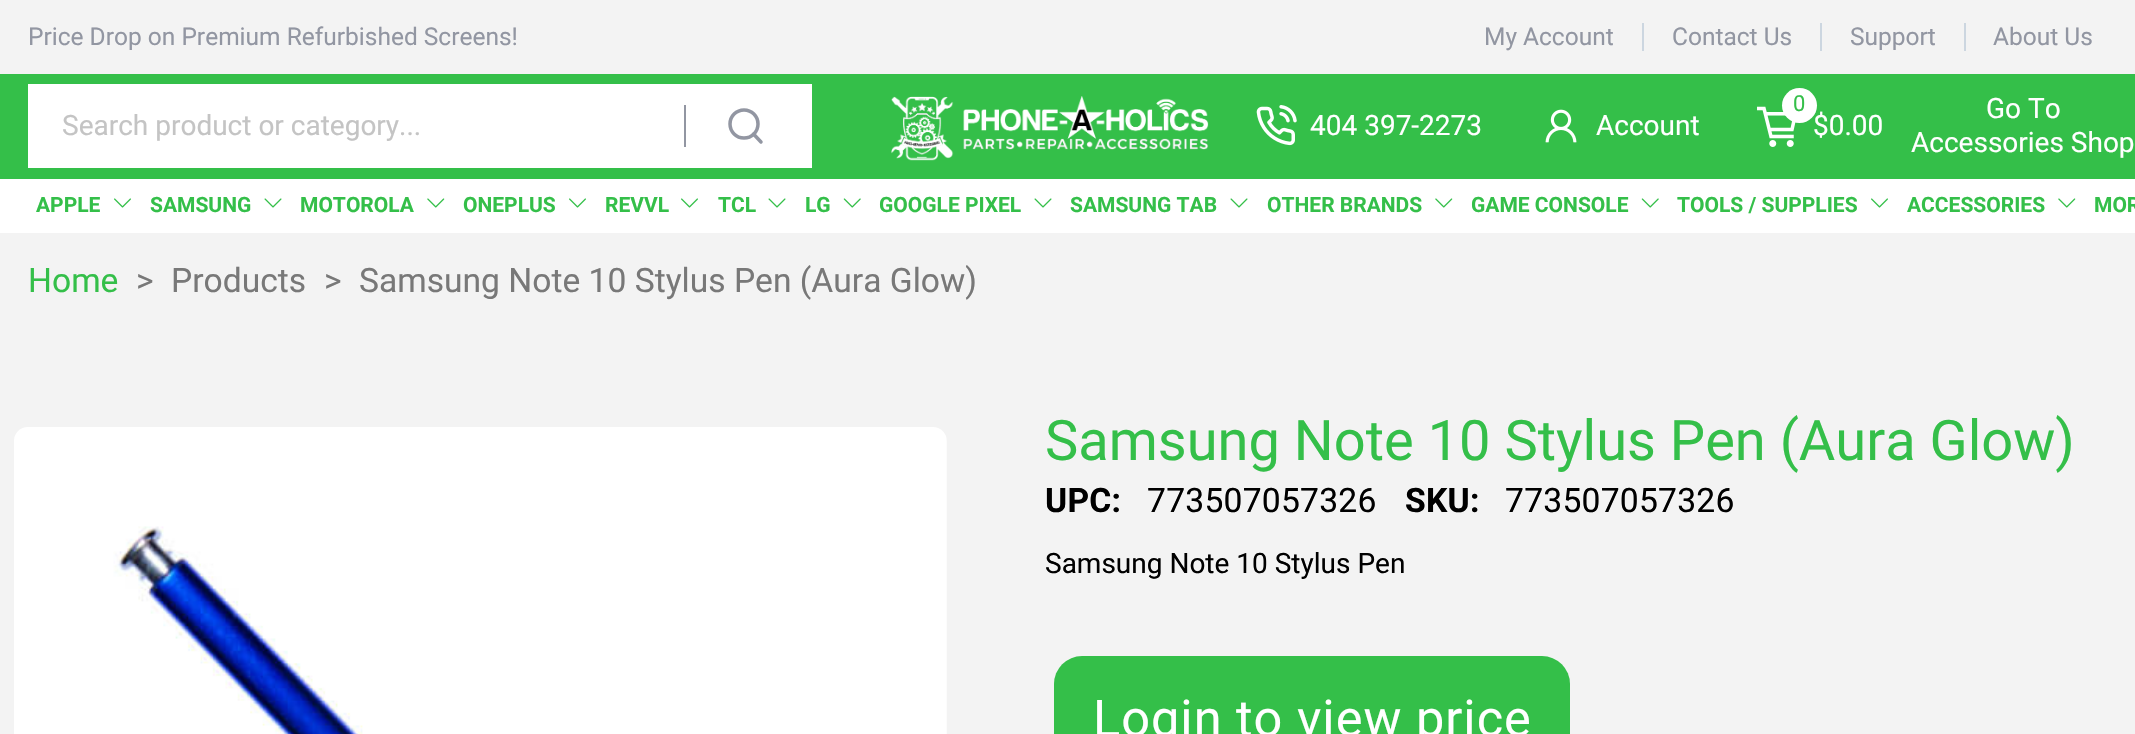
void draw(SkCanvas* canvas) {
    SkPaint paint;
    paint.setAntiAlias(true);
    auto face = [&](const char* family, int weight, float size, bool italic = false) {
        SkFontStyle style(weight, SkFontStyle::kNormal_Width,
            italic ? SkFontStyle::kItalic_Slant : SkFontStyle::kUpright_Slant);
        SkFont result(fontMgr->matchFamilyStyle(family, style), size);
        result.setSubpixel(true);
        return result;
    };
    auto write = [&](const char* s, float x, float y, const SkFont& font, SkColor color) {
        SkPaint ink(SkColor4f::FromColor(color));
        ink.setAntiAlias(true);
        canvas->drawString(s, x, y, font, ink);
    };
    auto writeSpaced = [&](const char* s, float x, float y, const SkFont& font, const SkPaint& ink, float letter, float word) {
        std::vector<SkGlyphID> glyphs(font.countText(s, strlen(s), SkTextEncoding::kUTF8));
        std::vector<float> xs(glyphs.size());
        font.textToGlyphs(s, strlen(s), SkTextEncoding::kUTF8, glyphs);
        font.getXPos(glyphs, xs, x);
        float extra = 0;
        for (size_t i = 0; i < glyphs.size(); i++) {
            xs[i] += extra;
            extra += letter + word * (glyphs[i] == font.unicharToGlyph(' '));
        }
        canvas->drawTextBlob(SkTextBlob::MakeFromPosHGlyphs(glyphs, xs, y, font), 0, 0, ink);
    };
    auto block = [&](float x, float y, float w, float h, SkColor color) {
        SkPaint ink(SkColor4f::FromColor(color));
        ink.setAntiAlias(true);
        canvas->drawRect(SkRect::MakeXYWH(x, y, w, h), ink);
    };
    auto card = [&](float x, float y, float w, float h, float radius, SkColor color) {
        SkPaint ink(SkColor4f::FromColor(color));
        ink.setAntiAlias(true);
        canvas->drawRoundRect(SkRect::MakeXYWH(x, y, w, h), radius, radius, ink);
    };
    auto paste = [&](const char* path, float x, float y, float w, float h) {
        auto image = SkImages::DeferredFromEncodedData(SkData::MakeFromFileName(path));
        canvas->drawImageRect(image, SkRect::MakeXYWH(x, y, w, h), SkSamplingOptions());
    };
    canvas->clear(SkColorSetRGB(243, 243, 243));
    auto kFont1 = face("Roboto", 400, 24.5f);
    write("Price Drop on Premium Refurbished Screens!", 28, 45, kFont1, SkColorSetRGB(146, 150, 162));
    write("My Account", 1484, 45, kFont1, SkColorSetRGB(146, 150, 162));
    block(1642, 23, 2, 28, SkColorSetRGB(204, 214, 224));
    write("Contact Us", 1672, 45, kFont1, SkColorSetRGB(146, 150, 162));
    block(1820, 23, 2, 28, SkColorSetRGB(204, 214, 224));
    write("Support", 1850, 45, kFont1, SkColorSetRGB(146, 150, 162));
    block(1964, 23, 2, 28, SkColorSetRGB(204, 214, 224));
    write("About Us", 1993, 45, kFont1, SkColorSetRGB(146, 150, 162));
    block(0, 74, 2135, 105, SkColorSetRGB(52, 191, 73));
    block(28, 84, 784, 84, SK_ColorWHITE);
    auto kFont2 = face("Roboto", 400, 28);
    write("Search product or category...", 62, 135, kFont2, SkColorSetRGB(196, 196, 196));
    block(684, 105, 2, 42, SkColorSetRGB(146, 150, 162));
    paint.setStyle(SkPaint::kStroke_Style);
    paint.setStrokeWidth(3.5f);
    paint.setColor(SkColorSetRGB(146, 150, 162));
    canvas->drawCircle(744, 124, 14, paint);
    paint.setStrokeCap(SkPaint::kRound_Cap);
    paint.setStrokeJoin(SkPaint::kRound_Join);
    canvas->drawPath(SkPathBuilder().moveTo(761, 142).lineTo(753.5f, 134).detach(), paint);
    paste("pic1.png", 891, 96, 318, 65);
    paste("pic2.png", 1256, 105, 41, 41);
    write("404 397-2273", 1310, 135, kFont2, SK_ColorWHITE);
    paste("pic3.png", 1545, 109, 32, 34);
    write("Account", 1596, 135, kFont2, SK_ColorWHITE);
    paste("pic4.png", 1757, 106, 39, 41);
    paint.setStyle(SkPaint::kFill_Style);
    paint.setColor(SK_ColorWHITE);
    canvas->drawCircle(1799.5f, 105.5f, 17.5f, paint);
    auto kFont3 = face("Roboto", 400, 22);
    write("0", 1793, 111, kFont3, SkColorSetRGB(52, 191, 73));
    write("$0.00", 1813, 135, kFont2, SK_ColorWHITE);
    write("Go To", 1986, 118, kFont2, SK_ColorWHITE);
    write("Accessories Shop", 1911, 152, kFont2, SK_ColorWHITE);
    block(0, 179, 2135, 54, SK_ColorWHITE);
    auto kFont4 = face("Roboto", 700, 21);
    write("APPLE", 36, 212, kFont4, SkColorSetRGB(52, 191, 73));
    paste("pic5.png", 114, 198, 17, 10);
    write("SAMSUNG", 150, 212, kFont4, SkColorSetRGB(52, 191, 73));
    paste("pic6.png", 264, 198, 18, 10);
    write("MOTOROLA", 300, 212, kFont4, SkColorSetRGB(52, 191, 73));
    paste("pic7.png", 427, 198, 18, 10);
    write("ONEPLUS", 463, 212, kFont4, SkColorSetRGB(52, 191, 73));
    paste("pic5.png", 569, 198, 17, 10);
    write("REVVL", 605, 212, kFont4, SkColorSetRGB(52, 191, 73));
    paste("pic5.png", 681, 198, 17, 10);
    write("TCL", 718, 212, kFont4, SkColorSetRGB(52, 191, 73));
    paste("pic6.png", 768, 198, 18, 10);
    write("LG", 805, 212, kFont4, SkColorSetRGB(52, 191, 73));
    paste("pic8.png", 843, 198, 18, 10);
    write("GOOGLE PIXEL", 879, 212, kFont4, SkColorSetRGB(52, 191, 73));
    paste("pic6.png", 1034, 198, 18, 10);
    write("SAMSUNG TAB", 1070, 212, kFont4, SkColorSetRGB(52, 191, 73));
    paste("pic6.png", 1230, 198, 18, 10);
    write("OTHER BRANDS", 1267, 212, kFont4, SkColorSetRGB(52, 191, 73));
    paste("pic7.png", 1435, 198, 18, 10);
    write("GAME CONSOLE", 1471, 212, kFont4, SkColorSetRGB(52, 191, 73));
    paste("pic8.png", 1641, 198, 18, 10);
    write("TOOLS / SUPPLIES", 1677, 212, kFont4, SkColorSetRGB(52, 191, 73));
    paste("pic5.png", 1871, 198, 17, 10);
    write("ACCESSORIES", 1907, 212, kFont4, SkColorSetRGB(52, 191, 73));
    paste("pic7.png", 2058, 198, 18, 10);
    write("MOR", 2094, 212, kFont4, SkColorSetRGB(52, 191, 73));
    auto kFont5 = face("Roboto", 400, 33.6f);
    write("Home", 28, 292, kFont5, SkColorSetRGB(52, 191, 73));
    write(">", 136, 292, kFont5, SkColorSetRGB(120, 120, 120));
    write("Products", 171, 292, kFont5, SkColorSetRGB(120, 120, 120));
    write(">", 324, 292, kFont5, SkColorSetRGB(120, 120, 120));
    write("Samsung Note 10 Stylus Pen (Aura Glow)", 359, 292, kFont5, SkColorSetRGB(120, 120, 120));
    paste("pic9.png", 14, 427, 933, 307);
    auto kFont6 = face("Roboto", 400, 56);
    write("Samsung Note 10 Stylus Pen (Aura Glow)", 1045, 460, kFont6, SkColorSetRGB(52, 191, 73));
    auto kFont7 = face("Roboto", 700, 33.6f);
    paint.setColor(SK_ColorBLACK);
    writeSpaced("UPC:", 1045, 512, kFont7, paint, 0.25f, 0);
    writeSpaced("773507057326", 1147, 512, kFont5, paint, 0.25f, 0);
    writeSpaced("SKU:", 1405, 512, kFont7, paint, 0.25f, 0);
    writeSpaced("773507057326", 1505, 512, kFont5, paint, 0.25f, 0);
    write("Samsung Note 10 Stylus Pen", 1045, 573, kFont2, SK_ColorBLACK);
    card(1054, 656, 516, 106, 28, SkColorSetRGB(52, 191, 73));
    auto kFont8 = face("Roboto", 400, 50.5f);
    paint.setColor(SK_ColorWHITE);
    writeSpaced("Login to view price", 1093, 736, kFont8, paint, 1, 0);
}
